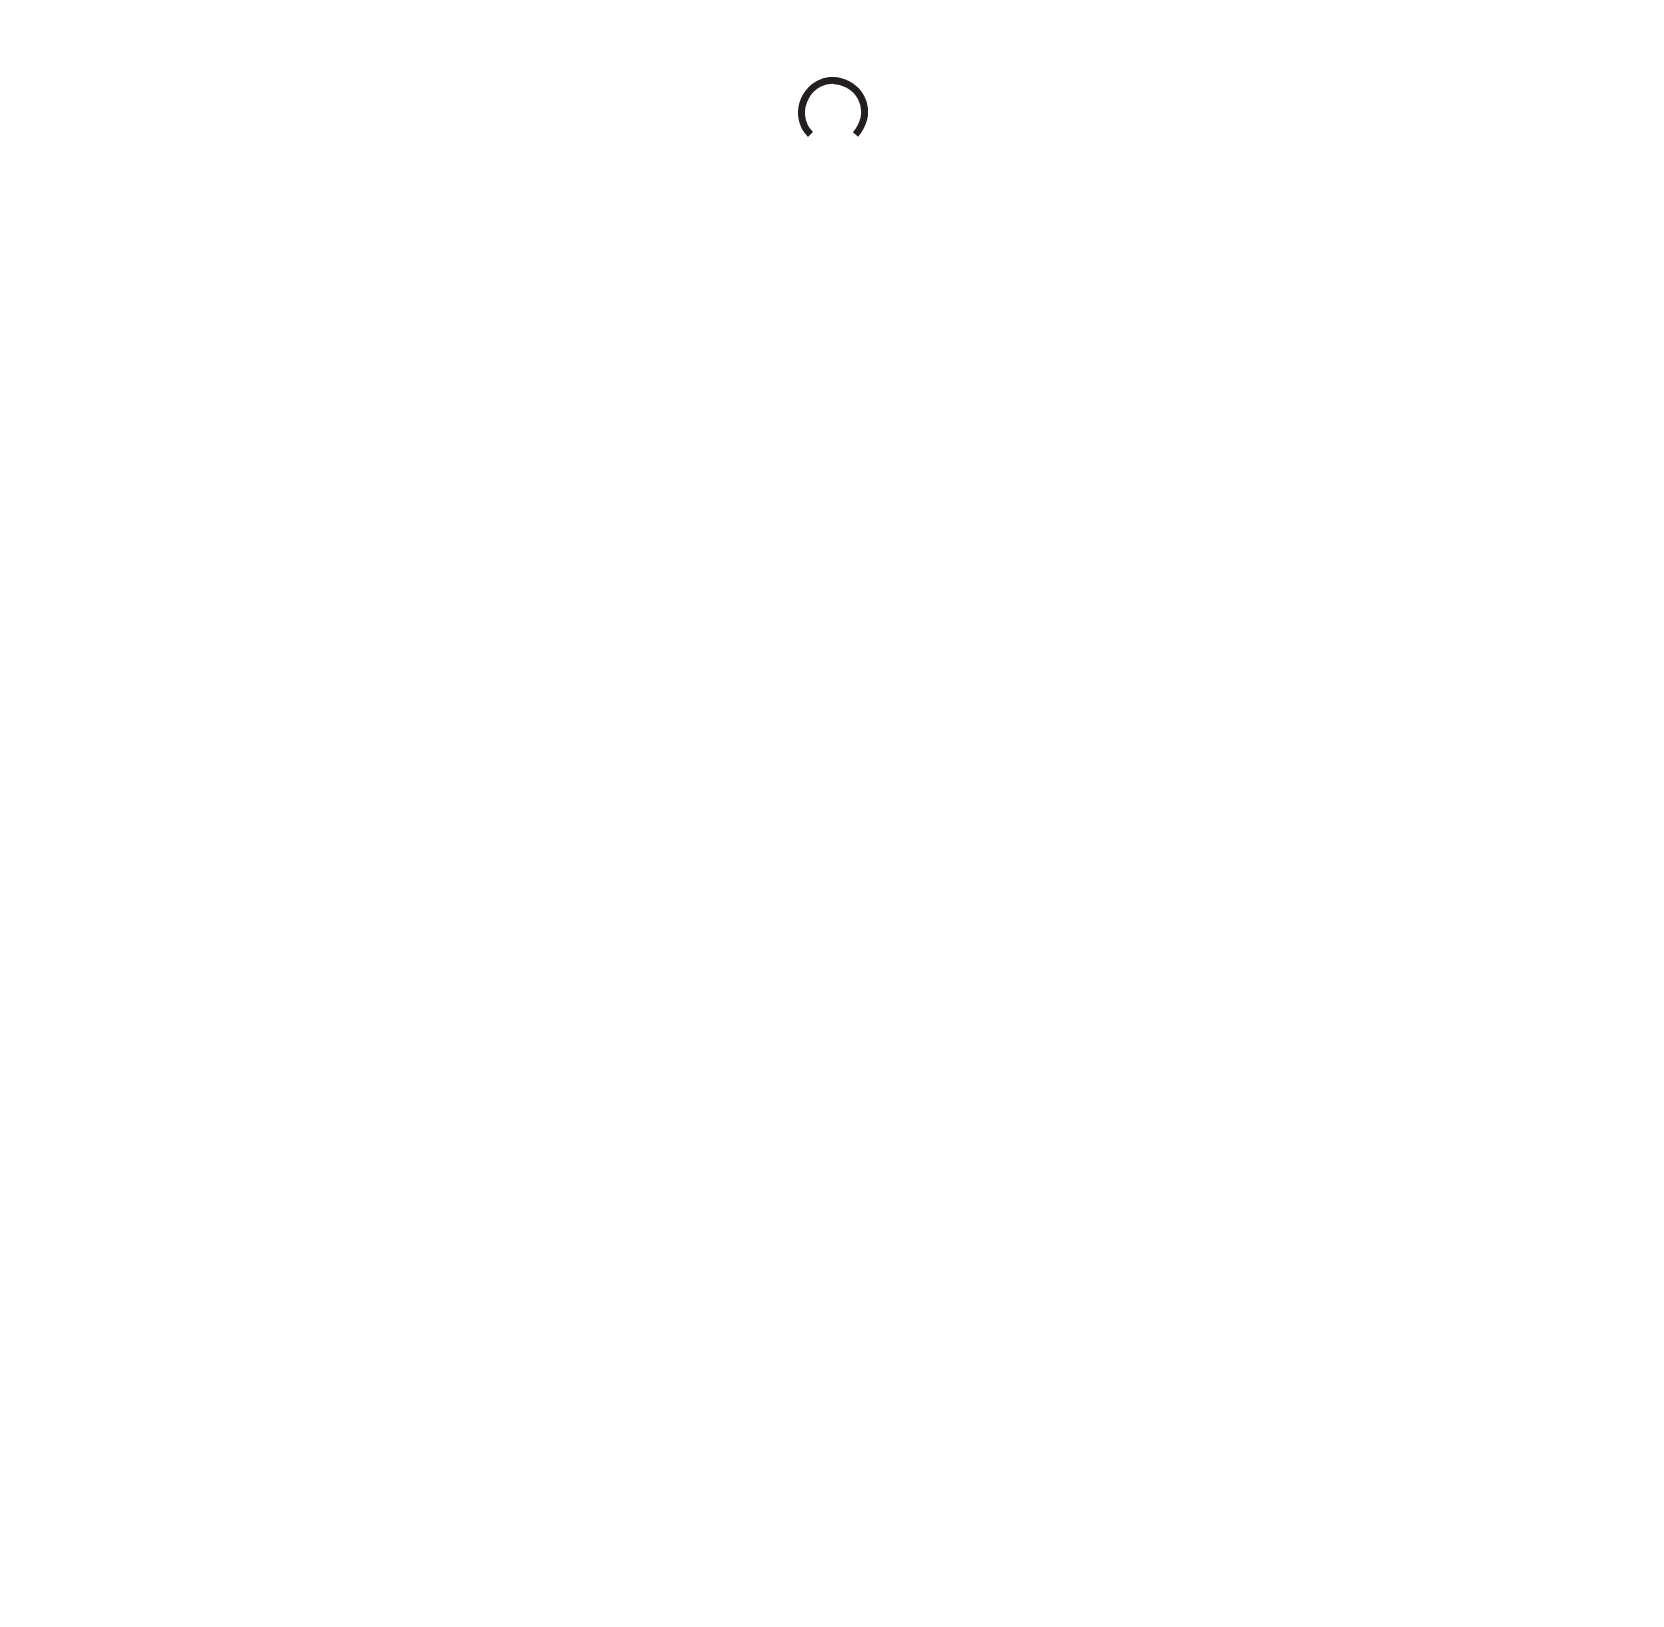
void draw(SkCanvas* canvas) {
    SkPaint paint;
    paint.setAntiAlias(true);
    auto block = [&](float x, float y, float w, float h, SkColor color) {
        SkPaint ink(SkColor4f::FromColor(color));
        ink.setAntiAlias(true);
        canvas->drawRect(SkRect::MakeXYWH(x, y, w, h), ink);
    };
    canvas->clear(SK_ColorWHITE);
    canvas->save();
    canvas->clipRect(SkRect::MakeXYWH(798, 77, 35, 70));
    paint.setStyle(SkPaint::kStroke_Style);
    paint.setStrokeWidth(7);
    paint.setColor(SkColorSetRGB(35, 31, 32));
    canvas->drawPath(SkPathBuilder().moveTo(810.5f, 134.5f).cubicTo(789, 112.5f, 809, 75, 839, 81).cubicTo(845, 82.5f, 851, 85.5f, 855.5f, 89.5f).detach(), paint);
    canvas->restore();
    block(831, 77, 4, 4, SkColorSetRGB(35, 31, 32));
    canvas->save();
    canvas->clipRect(SkRect::MakeXYWH(833, 77, 35, 70));
    canvas->drawPath(SkPathBuilder().moveTo(810.5f, 89.5f).cubicTo(832.5f, 68, 870, 88, 864, 118).cubicTo(862.5f, 124, 859.5f, 130, 855.5f, 134.5f).detach(), paint);
    canvas->restore();
}
